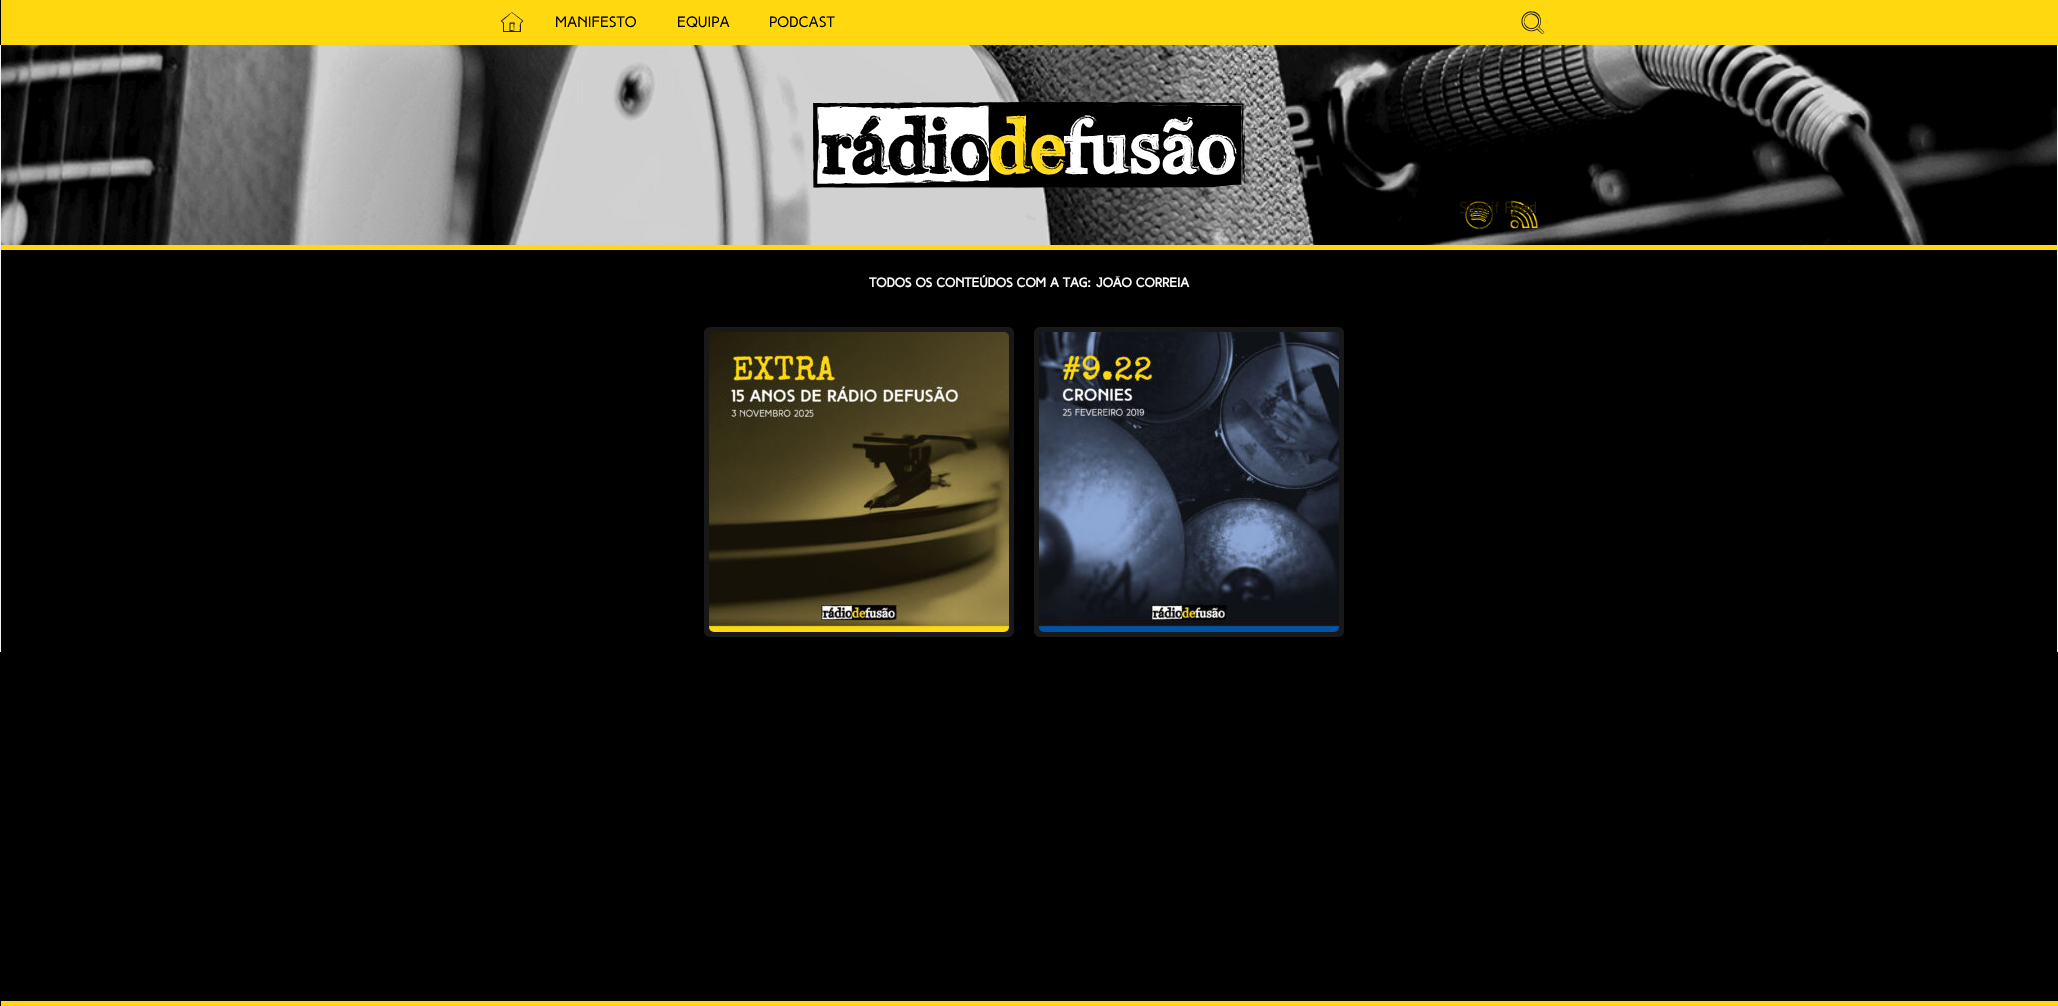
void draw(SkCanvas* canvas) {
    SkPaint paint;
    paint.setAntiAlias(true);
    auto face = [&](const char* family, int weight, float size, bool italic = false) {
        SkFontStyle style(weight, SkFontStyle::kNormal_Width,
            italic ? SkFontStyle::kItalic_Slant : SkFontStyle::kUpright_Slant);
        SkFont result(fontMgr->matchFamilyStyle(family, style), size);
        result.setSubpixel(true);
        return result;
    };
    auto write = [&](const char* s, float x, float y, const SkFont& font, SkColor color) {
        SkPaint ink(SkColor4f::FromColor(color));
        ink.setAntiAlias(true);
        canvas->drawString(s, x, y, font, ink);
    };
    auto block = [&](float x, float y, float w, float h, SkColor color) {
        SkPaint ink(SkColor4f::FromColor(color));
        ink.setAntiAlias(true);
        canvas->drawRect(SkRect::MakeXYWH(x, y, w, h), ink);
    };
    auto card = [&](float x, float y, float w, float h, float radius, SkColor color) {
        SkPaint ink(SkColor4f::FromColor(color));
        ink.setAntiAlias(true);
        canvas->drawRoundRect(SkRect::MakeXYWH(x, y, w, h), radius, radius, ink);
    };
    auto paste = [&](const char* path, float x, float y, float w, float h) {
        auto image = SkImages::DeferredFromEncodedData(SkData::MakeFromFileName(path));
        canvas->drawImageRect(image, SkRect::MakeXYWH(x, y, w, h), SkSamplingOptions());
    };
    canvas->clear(SK_ColorBLACK);
    block(2057, 45, 1, 607, SkColorSetRGB(242, 242, 242));
    block(0, 45, 1, 607, SkColorSetRGB(242, 242, 242));
    paste("pic1.png", 1, 45, 2056, 200);
    block(1, 245, 2056, 5, SkColorSetRGB(255, 216, 16));
    block(1, 0, 2057, 45, SkColorSetRGB(255, 216, 16));
    paste("pic2.png", 500, 12, 24, 20);
    auto kFont1 = face("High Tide", 400, 15);
    write("Manifesto", 555, 27, kFont1, SK_ColorBLACK);
    write("Equipa", 677, 27, kFont1, SK_ColorBLACK);
    write("Podcast", 769, 27, kFont1, SK_ColorBLACK);
    paste("pic3.png", 1521, 11, 24, 23);
    paste("pic4.png", 813, 102, 432, 86);
    paste("pic5.png", 1465, 201, 29, 29);
    canvas->save();
    canvas->clipRect(SkRect::MakeXYWH(1459, 195, 40, 40));
    auto kFont2 = face("PT Sans", 400, 16);
    write("Spotif", 1459, 213, kFont2, SkColorSetRGB(29, 24, 2));
    canvas->restore();
    paste("pic6.png", 1510, 200, 29, 29);
    write("Feed", 1504, 213, kFont2, SkColorSetRGB(38, 32, 3));
    auto kFont3 = face("High Tide", 700, 13);
    write("Todos os conteúdos com a tag", 869, 287, kFont3, SK_ColorWHITE);
    auto kFont4 = face("Liberation Sans", 700, 13);
    write(":", 1087, 287, kFont4, SK_ColorWHITE);
    write("João Correia", 1096, 287, kFont3, SK_ColorWHITE);
    card(704, 327, 310, 310, 6, SkColorSetRGB(25, 25, 25));
    paste("pic7.png", 709, 332, 300, 300);
    card(1034, 327, 310, 310, 6, SkColorSetRGB(25, 25, 25));
    paste("pic8.png", 1039, 332, 300, 300);
    block(1, 1001, 2057, 5, SkColorSetRGB(255, 216, 16));
}
